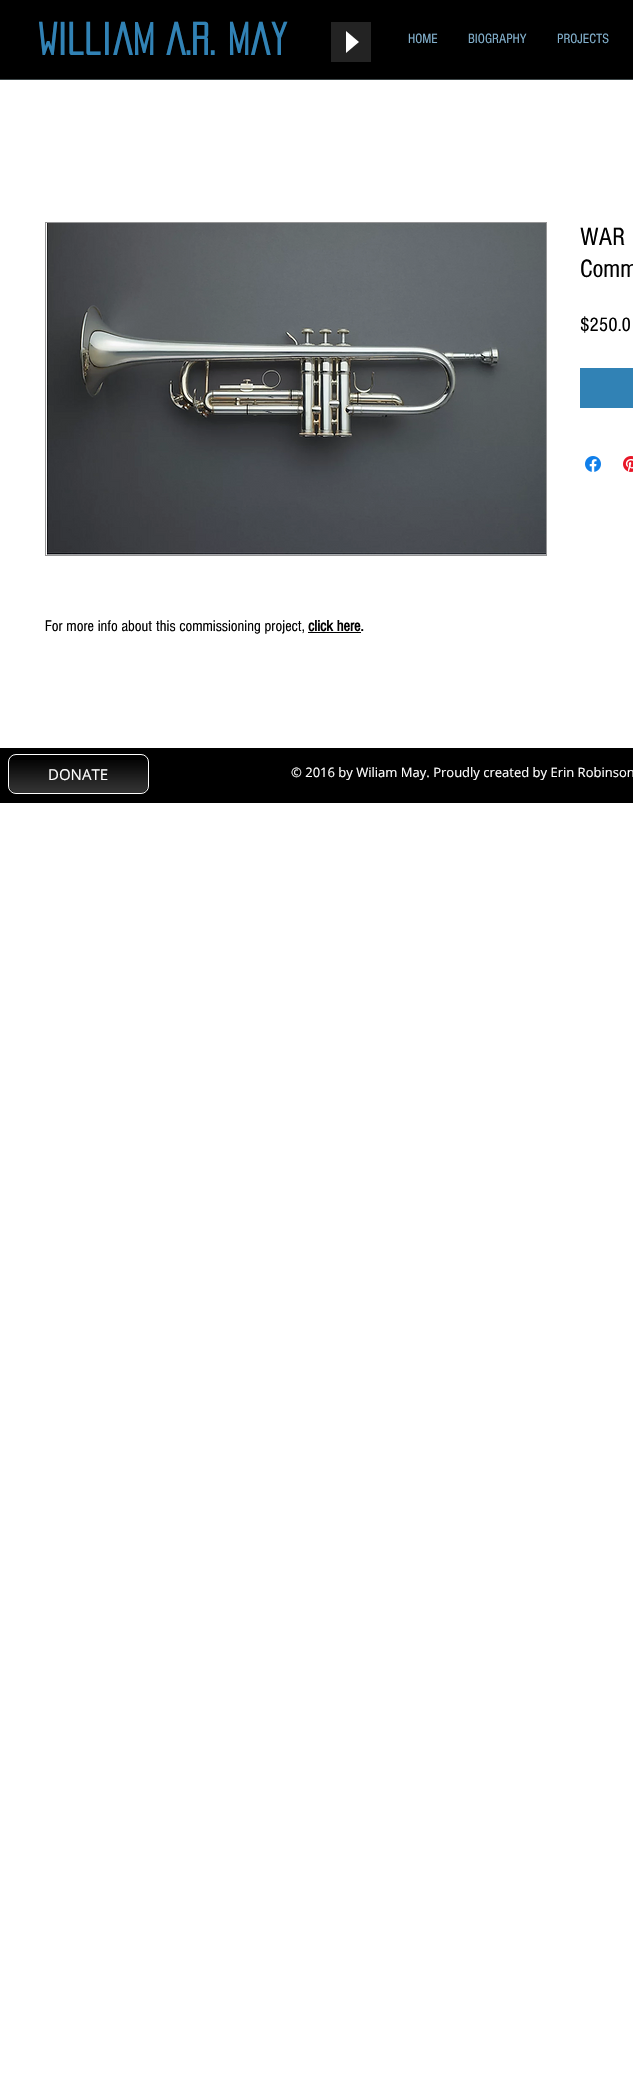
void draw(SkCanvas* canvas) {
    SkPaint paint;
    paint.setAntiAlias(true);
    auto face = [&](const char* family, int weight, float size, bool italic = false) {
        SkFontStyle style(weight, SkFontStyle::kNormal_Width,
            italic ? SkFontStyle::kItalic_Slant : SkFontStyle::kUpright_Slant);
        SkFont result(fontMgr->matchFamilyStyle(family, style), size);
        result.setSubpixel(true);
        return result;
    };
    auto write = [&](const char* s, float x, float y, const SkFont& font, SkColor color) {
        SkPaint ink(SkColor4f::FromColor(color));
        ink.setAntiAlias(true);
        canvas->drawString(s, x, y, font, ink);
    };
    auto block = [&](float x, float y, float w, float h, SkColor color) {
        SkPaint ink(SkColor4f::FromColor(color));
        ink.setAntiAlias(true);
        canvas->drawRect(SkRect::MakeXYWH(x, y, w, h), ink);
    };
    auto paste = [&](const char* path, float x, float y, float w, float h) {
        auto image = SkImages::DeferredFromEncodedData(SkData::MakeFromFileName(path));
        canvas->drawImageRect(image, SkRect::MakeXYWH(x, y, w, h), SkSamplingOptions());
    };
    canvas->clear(SK_ColorWHITE);
    block(0, 0, 633, 79, SK_ColorBLACK);
    block(0, 79, 633, 1, SkColorSetRGB(60, 69, 71));
    auto kFont1 = face("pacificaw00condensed", 700, 40);
    write("William A.R. May", 38, 55, kFont1, SkColorSetRGB(49, 130, 181));
    block(331, 22, 40, 40, SkColorSetRGB(35, 35, 35));
    paint.setColor(SK_ColorWHITE);
    canvas->drawPath(SkPathBuilder().moveTo(346, 53).lineTo(346, 31).lineTo(359, 42).close().detach(), paint);
    auto kFont2 = face("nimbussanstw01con", 400, 14);
    write("HOME", 408, 43, kFont2, SkColorSetRGB(131, 177, 206));
    write("BIOGRAPHY", 468, 43, kFont2, SkColorSetRGB(131, 177, 206));
    write("PROJECTS", 557, 43, kFont2, SkColorSetRGB(131, 177, 206));
    auto kFont3 = face("nimbussanstw01con", 400, 26);
    write("WAR", 580, 245, kFont3, SK_ColorBLACK);
    write("Comm", 580, 277, kFont3, SK_ColorBLACK);
    auto kFont4 = face("nimbussanstw01con", 400, 20);
    write("$250.0", 580, 331, kFont4, SK_ColorBLACK);
    block(580, 368, 53, 40, SkColorSetRGB(49, 130, 181));
    paste("pic1.png", 585, 456, 16, 16);
    paste("pic2.png", 623, 456, 10, 16);
    paint.setStyle(SkPaint::kStroke_Style);
    paint.setStrokeWidth(1);
    paint.setColor(SkColorSetRGB(149, 149, 150));
    canvas->drawRect(SkRect::MakeXYWH(45.5f, 222.5f, 501, 333), paint);
    paste("pic3.png", 46, 223, 500, 332);
    auto kFont5 = face("nimbussanstw01con", 400, 16);
    write("For more info about this commissioning project,", 45, 631, kFont5, SK_ColorBLACK);
    auto kFont6 = face("nimbussanstw01con", 700, 16);
    write("click here.", 308, 631, kFont6, SK_ColorBLACK);
    block(308, 632, 53, 1, SK_ColorBLACK);
    block(0, 748, 633, 55, SK_ColorBLACK);
    paint.setColor(SK_ColorWHITE);
    canvas->drawRoundRect(SkRect::MakeXYWH(8.5f, 754.5f, 140, 39), 7.5f, 7.5f, paint);
    paste("pic4.png", 9, 760, 139, 33);
    auto kFont7 = face("Open Sans", 400, 15);
    write("DONATE", 48, 780, kFont7, SK_ColorWHITE);
    auto kFont8 = face("Open Sans", 400, 13);
    write("© 2016 by Wiliam May. Proudly created by Erin Robinson", 291, 777, kFont8, SK_ColorWHITE);
}
